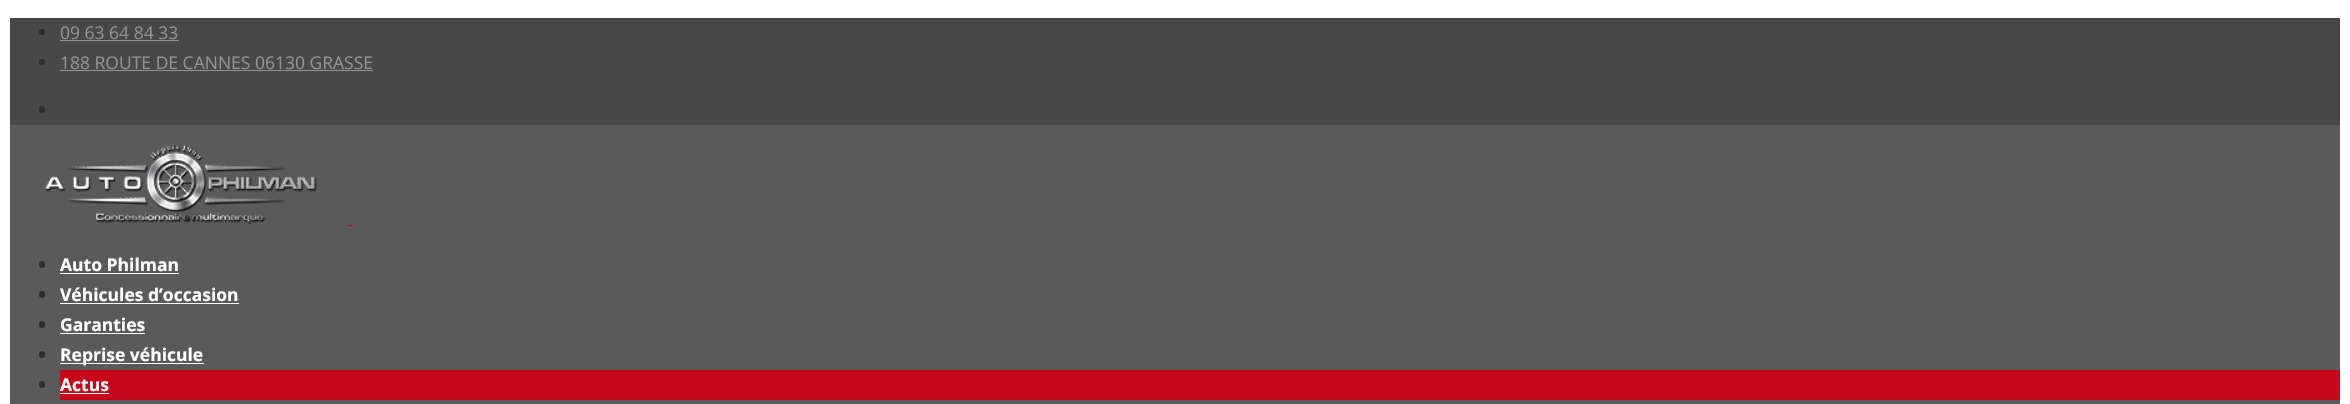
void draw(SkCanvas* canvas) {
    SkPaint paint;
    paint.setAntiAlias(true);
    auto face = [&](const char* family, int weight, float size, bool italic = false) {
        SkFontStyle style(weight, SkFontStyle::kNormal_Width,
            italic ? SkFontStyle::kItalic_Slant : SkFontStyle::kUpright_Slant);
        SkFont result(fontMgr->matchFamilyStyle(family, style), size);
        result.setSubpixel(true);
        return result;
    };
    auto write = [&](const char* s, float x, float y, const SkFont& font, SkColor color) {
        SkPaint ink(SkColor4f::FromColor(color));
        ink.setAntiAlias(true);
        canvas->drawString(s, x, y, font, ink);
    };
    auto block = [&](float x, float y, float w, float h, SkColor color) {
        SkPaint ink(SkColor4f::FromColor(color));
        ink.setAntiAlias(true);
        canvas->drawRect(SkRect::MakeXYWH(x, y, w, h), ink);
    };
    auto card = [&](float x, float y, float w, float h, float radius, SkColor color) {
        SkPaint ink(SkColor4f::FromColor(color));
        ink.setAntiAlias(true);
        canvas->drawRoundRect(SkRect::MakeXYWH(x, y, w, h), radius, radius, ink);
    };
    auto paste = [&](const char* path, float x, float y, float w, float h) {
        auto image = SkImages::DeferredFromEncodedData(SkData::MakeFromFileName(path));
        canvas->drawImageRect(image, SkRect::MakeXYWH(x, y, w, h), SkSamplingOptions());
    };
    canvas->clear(SK_ColorWHITE);
    block(10, 125, 2330, 279, SkColorSetRGB(90, 90, 90));
    block(10, 18, 2330, 107, SkColorSetRGB(72, 72, 72));
    paint.setColor(SkColorSetRGB(45, 45, 45));
    canvas->drawCircle(42, 32, 3, paint);
    auto kFont1 = face("Open Sans", 400, 17.5f);
    write("09 63 64 84 33", 60, 39, kFont1, SkColorSetRGB(146, 149, 150));
    block(60, 40, 119, 1, SkColorSetRGB(146, 149, 150));
    canvas->drawCircle(42, 62, 3, paint);
    write("188 ROUTE DE CANNES 06130 GRASSE", 60, 69, kFont1, SkColorSetRGB(146, 149, 150));
    block(60, 70, 313, 1, SkColorSetRGB(146, 149, 150));
    card(39, 106, 6, 7, 3, SkColorSetRGB(45, 45, 45));
    paste("pic1.png", 45, 143, 272, 81);
    block(348, 225, 5, 1, SkColorSetRGB(199, 8, 27));
    card(39, 261, 6, 7, 3, SkColorSetRGB(45, 45, 45));
    auto kFont2 = face("Open Sans", 700, 17.5f);
    write("Auto Philman", 60, 271, kFont2, SK_ColorWHITE);
    block(60, 273, 119, 1, SK_ColorWHITE);
    card(39, 291, 6, 7, 3, SkColorSetRGB(45, 45, 45));
    write("Véhicules d’occasion", 60, 301, kFont2, SK_ColorWHITE);
    block(60, 303, 179, 1, SK_ColorWHITE);
    card(39, 321, 6, 7, 3, SkColorSetRGB(45, 45, 45));
    write("Garanties", 60, 331, kFont2, SK_ColorWHITE);
    block(60, 333, 85, 1, SK_ColorWHITE);
    card(39, 351, 6, 7, 3, SkColorSetRGB(45, 45, 45));
    block(60, 363, 144, 1, SK_ColorWHITE);
    write("Reprise véhicule", 60, 361, kFont2, SK_ColorWHITE);
    block(60, 370, 2280, 30, SkColorSetRGB(199, 8, 27));
    card(39, 381, 6, 7, 3, SkColorSetRGB(45, 45, 45));
    write("Actus", 60, 391, kFont2, SK_ColorWHITE);
    block(60, 393, 49, 1, SK_ColorWHITE);
}
